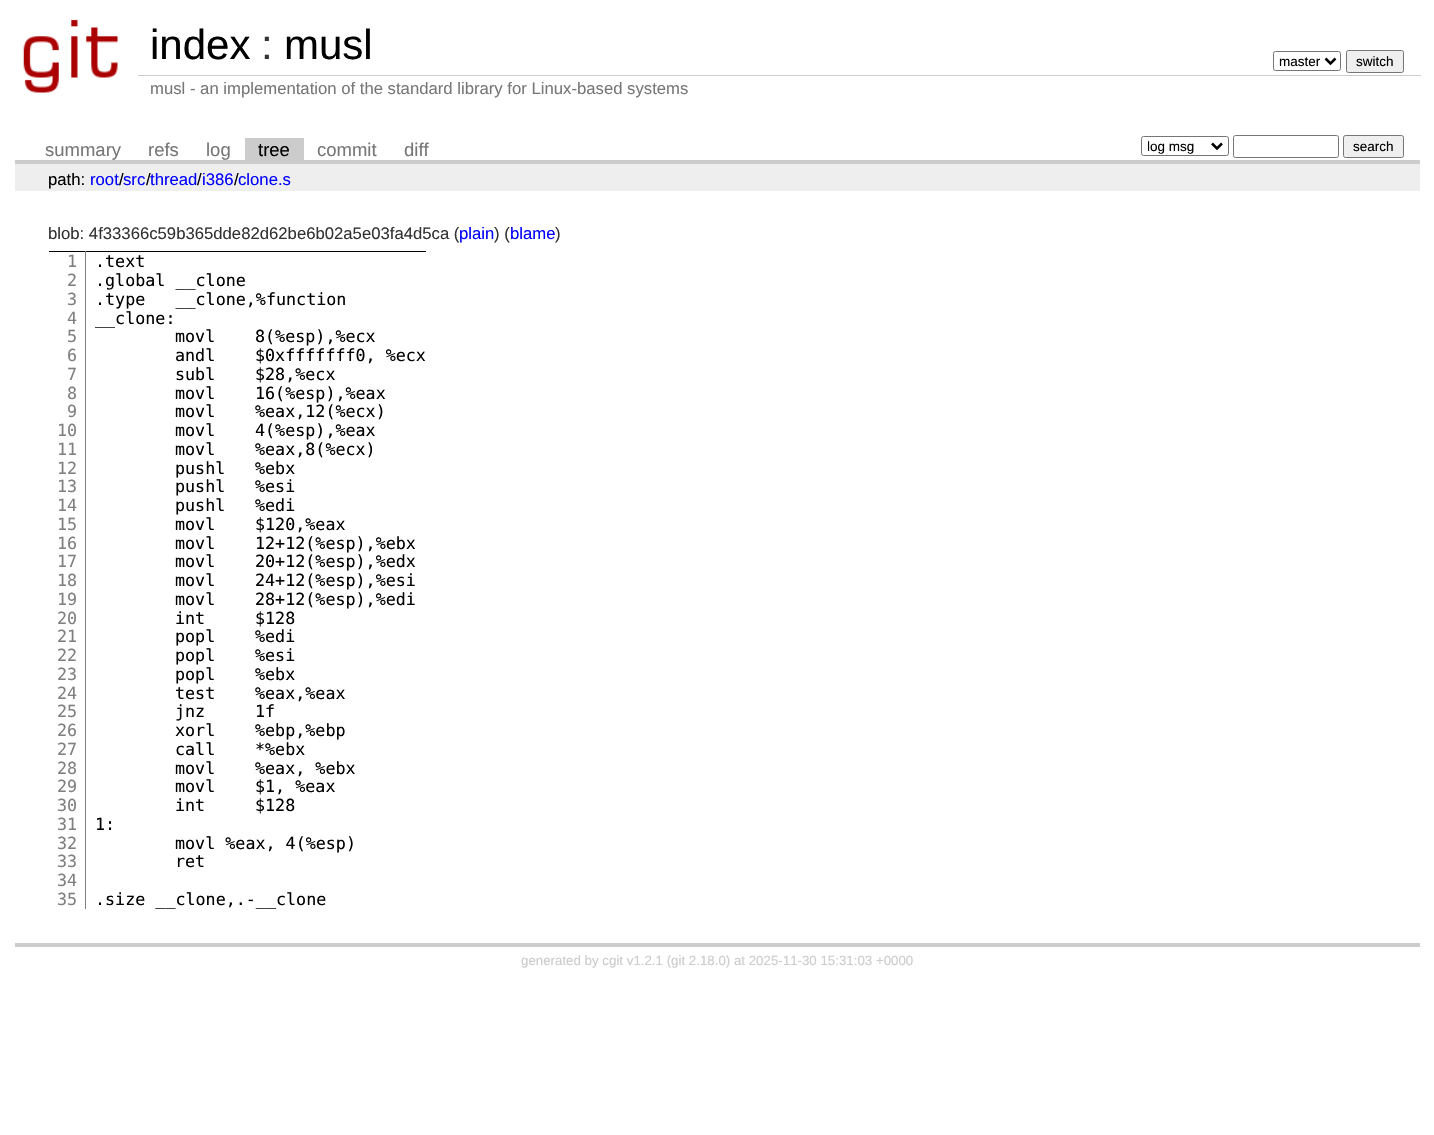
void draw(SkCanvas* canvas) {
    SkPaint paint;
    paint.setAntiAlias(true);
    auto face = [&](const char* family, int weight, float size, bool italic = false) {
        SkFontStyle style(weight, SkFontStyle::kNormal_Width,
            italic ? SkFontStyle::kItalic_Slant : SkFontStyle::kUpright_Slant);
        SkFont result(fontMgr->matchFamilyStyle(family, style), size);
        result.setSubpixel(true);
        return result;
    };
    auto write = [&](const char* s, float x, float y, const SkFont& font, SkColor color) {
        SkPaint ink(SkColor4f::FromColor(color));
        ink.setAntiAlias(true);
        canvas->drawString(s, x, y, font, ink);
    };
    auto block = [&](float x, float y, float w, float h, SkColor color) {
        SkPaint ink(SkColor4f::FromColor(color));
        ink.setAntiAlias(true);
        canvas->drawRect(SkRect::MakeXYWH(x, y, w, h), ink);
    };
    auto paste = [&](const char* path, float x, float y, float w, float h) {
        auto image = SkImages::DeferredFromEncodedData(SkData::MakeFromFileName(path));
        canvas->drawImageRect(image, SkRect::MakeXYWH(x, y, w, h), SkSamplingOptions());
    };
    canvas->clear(SK_ColorWHITE);
    paste("pic1.png", 23, 19, 95, 74);
    auto kFont1 = face("Liberation Sans", 400, 42);
    write("index", 150, 59, kFont1, SK_ColorBLACK);
    write(":", 261, 59, kFont1, SkColorSetRGB(51, 51, 51));
    write("musl", 284, 59, kFont1, SK_ColorBLACK);
    paint.setStyle(SkPaint::kStroke_Style);
    paint.setStrokeWidth(1);
    paint.setColor(SkColorSetRGB(118, 118, 118));
    canvas->drawRoundRect(SkRect::MakeXYWH(1273.5f, 51.5f, 67, 19), 2, 2, paint);
    paint.setStrokeWidth(2.5f);
    paint.setColor(SK_ColorBLACK);
    canvas->drawPath(SkPathBuilder().moveTo(1325.5f, 58.5f).lineTo(1330.5f, 63.5f).lineTo(1335.5f, 58.5f).detach(), paint);
    auto kFont2 = face("Liberation Sans", 400, 13.5f);
    write("master", 1279, 66, kFont2, SK_ColorBLACK);
    paint.setStyle(SkPaint::kFill_Style);
    paint.setColor(SkColorSetRGB(239, 239, 239));
    canvas->drawRoundRect(SkRect::MakeXYWH(1346.5f, 50.5f, 57, 22), 2, 2, paint);
    paint.setStyle(SkPaint::kStroke_Style);
    paint.setStrokeWidth(1);
    paint.setColor(SkColorSetRGB(118, 118, 118));
    canvas->drawRoundRect(SkRect::MakeXYWH(1346.5f, 50.5f, 57, 22), 2, 2, paint);
    write("switch", 1356, 66, kFont2, SK_ColorBLACK);
    block(138, 75, 1283, 1, SkColorSetRGB(204, 204, 204));
    auto kFont3 = face("Liberation Sans", 400, 16.7f);
    write("musl - an implementation of the standard library for Linux-based systems", 150, 94, kFont3, SkColorSetRGB(119, 119, 119));
    block(15, 160, 1405, 4, SkColorSetRGB(204, 204, 204));
    auto kFont4 = face("Liberation Sans", 400, 18.5f);
    write("summary", 45, 156, kFont4, SkColorSetRGB(119, 119, 119));
    write("refs", 148, 156, kFont4, SkColorSetRGB(119, 119, 119));
    write("log", 206, 156, kFont4, SkColorSetRGB(119, 119, 119));
    block(245, 138, 59, 22, SkColorSetRGB(204, 204, 204));
    write("tree", 258, 156, kFont4, SK_ColorBLACK);
    write("commit", 317, 156, kFont4, SkColorSetRGB(119, 119, 119));
    write("diff", 404, 156, kFont4, SkColorSetRGB(119, 119, 119));
    canvas->drawRoundRect(SkRect::MakeXYWH(1141.5f, 136.5f, 87, 19), 2, 2, paint);
    paint.setStrokeWidth(2.5f);
    paint.setColor(SK_ColorBLACK);
    canvas->drawPath(SkPathBuilder().moveTo(1212, 143.5f).lineTo(1217, 148.5f).lineTo(1222, 143.5f).detach(), paint);
    canvas->save();
    canvas->clipRect(SkRect::MakeXYWH(1148, 138, 60, 17));
    write("log msg", 1147, 151, kFont2, SK_ColorBLACK);
    canvas->restore();
    paint.setStrokeWidth(1);
    paint.setColor(SkColorSetRGB(118, 118, 118));
    canvas->drawRoundRect(SkRect::MakeXYWH(1233.5f, 135.5f, 105, 22), 2, 2, paint);
    paint.setStyle(SkPaint::kFill_Style);
    paint.setColor(SkColorSetRGB(239, 239, 239));
    canvas->drawRoundRect(SkRect::MakeXYWH(1343.5f, 135.5f, 60, 22), 2, 2, paint);
    paint.setStyle(SkPaint::kStroke_Style);
    paint.setColor(SkColorSetRGB(118, 118, 118));
    canvas->drawRoundRect(SkRect::MakeXYWH(1343.5f, 135.5f, 60, 22), 2, 2, paint);
    write("search", 1353, 151, kFont2, SK_ColorBLACK);
    block(15, 164, 1405, 27, SkColorSetRGB(238, 238, 238));
    write("path:", 48, 185, kFont3, SK_ColorBLACK);
    write("root", 90, 185, kFont3, SkColorSetRGB(0, 0, 255));
    write("/", 119, 185, kFont3, SK_ColorBLACK);
    write("src", 123, 185, kFont3, SkColorSetRGB(0, 0, 255));
    write("/", 146, 185, kFont3, SK_ColorBLACK);
    write("thread i386", 150, 185, kFont3, SkColorSetRGB(0, 0, 255));
    write("/", 197, 185, kFont3, SK_ColorBLACK);
    write("/", 234, 185, kFont3, SK_ColorBLACK);
    write("clone.s", 238, 185, kFont3, SkColorSetRGB(0, 0, 255));
    block(15, 943, 1405, 4, SkColorSetRGB(204, 204, 204));
    write("blob: 4f33366c59b365dde82d62be6b02a5e03fa4d5ca (", 48, 239, kFont3, SkColorSetRGB(51, 51, 51));
    write("plain", 459, 239, kFont3, SkColorSetRGB(0, 0, 255));
    write(") (", 494, 239, kFont3, SkColorSetRGB(51, 51, 51));
    write("blame", 510, 239, kFont3, SkColorSetRGB(0, 0, 255));
    write(")", 555, 239, kFont3, SkColorSetRGB(51, 51, 51));
    block(49, 251, 377, 1, SK_ColorBLACK);
    block(85, 251, 1, 658, SkColorSetRGB(128, 128, 128));
    auto kFont5 = face("DejaVu Sans Mono", 400, 16.7f);
    write("1", 67, 267, kFont5, SkColorSetRGB(128, 128, 128));
    write("2", 67, 286, kFont5, SkColorSetRGB(128, 128, 128));
    write("3", 67, 305, kFont5, SkColorSetRGB(128, 128, 128));
    write("4", 67, 324, kFont5, SkColorSetRGB(128, 128, 128));
    write("5", 67, 342, kFont5, SkColorSetRGB(128, 128, 128));
    write("6", 67, 361, kFont5, SkColorSetRGB(128, 128, 128));
    write("7", 67, 380, kFont5, SkColorSetRGB(128, 128, 128));
    write("8", 67, 399, kFont5, SkColorSetRGB(128, 128, 128));
    write("9", 67, 417, kFont5, SkColorSetRGB(128, 128, 128));
    write("10", 57, 436, kFont5, SkColorSetRGB(128, 128, 128));
    write("11", 57, 455, kFont5, SkColorSetRGB(128, 128, 128));
    write("12", 57, 474, kFont5, SkColorSetRGB(128, 128, 128));
    write("13", 57, 492, kFont5, SkColorSetRGB(128, 128, 128));
    write("14", 57, 511, kFont5, SkColorSetRGB(128, 128, 128));
    write("15", 57, 530, kFont5, SkColorSetRGB(128, 128, 128));
    write("16", 57, 549, kFont5, SkColorSetRGB(128, 128, 128));
    write("17", 57, 567, kFont5, SkColorSetRGB(128, 128, 128));
    write("18", 57, 586, kFont5, SkColorSetRGB(128, 128, 128));
    write("19", 57, 605, kFont5, SkColorSetRGB(128, 128, 128));
    write("20", 57, 624, kFont5, SkColorSetRGB(128, 128, 128));
    write("21", 57, 642, kFont5, SkColorSetRGB(128, 128, 128));
    write("22", 57, 661, kFont5, SkColorSetRGB(128, 128, 128));
    write("23", 57, 680, kFont5, SkColorSetRGB(128, 128, 128));
    write("24", 57, 699, kFont5, SkColorSetRGB(128, 128, 128));
    write("25", 57, 717, kFont5, SkColorSetRGB(128, 128, 128));
    write("26", 57, 736, kFont5, SkColorSetRGB(128, 128, 128));
    write("27", 57, 755, kFont5, SkColorSetRGB(128, 128, 128));
    write("28", 57, 774, kFont5, SkColorSetRGB(128, 128, 128));
    write("29", 57, 792, kFont5, SkColorSetRGB(128, 128, 128));
    write("30", 57, 811, kFont5, SkColorSetRGB(128, 128, 128));
    write("31", 57, 830, kFont5, SkColorSetRGB(128, 128, 128));
    write("32", 57, 849, kFont5, SkColorSetRGB(128, 128, 128));
    write("33", 57, 867, kFont5, SkColorSetRGB(128, 128, 128));
    write("34", 57, 886, kFont5, SkColorSetRGB(128, 128, 128));
    write("35", 57, 905, kFont5, SkColorSetRGB(128, 128, 128));
    write(".text", 95, 267, kFont5, SK_ColorBLACK);
    write(".global __clone", 95, 286, kFont5, SK_ColorBLACK);
    write(".type   __clone,%function", 95, 305, kFont5, SK_ColorBLACK);
    write("__clone:", 95, 324, kFont5, SK_ColorBLACK);
    write("movl", 175, 342, kFont5, SK_ColorBLACK);
    write("8(%esp),%ecx", 255, 342, kFont5, SK_ColorBLACK);
    write("andl", 175, 361, kFont5, SK_ColorBLACK);
    write("$0xfffffff0, %ecx", 255, 361, kFont5, SK_ColorBLACK);
    write("subl", 175, 380, kFont5, SK_ColorBLACK);
    write("$28,%ecx", 255, 380, kFont5, SK_ColorBLACK);
    write("movl", 175, 399, kFont5, SK_ColorBLACK);
    write("16(%esp),%eax", 255, 399, kFont5, SK_ColorBLACK);
    write("movl", 175, 417, kFont5, SK_ColorBLACK);
    write("%eax,12(%ecx)", 255, 417, kFont5, SK_ColorBLACK);
    write("movl", 175, 436, kFont5, SK_ColorBLACK);
    write("4(%esp),%eax", 255, 436, kFont5, SK_ColorBLACK);
    write("movl", 175, 455, kFont5, SK_ColorBLACK);
    write("%eax,8(%ecx)", 255, 455, kFont5, SK_ColorBLACK);
    write("pushl", 175, 474, kFont5, SK_ColorBLACK);
    write("%ebx", 255, 474, kFont5, SK_ColorBLACK);
    write("pushl", 175, 492, kFont5, SK_ColorBLACK);
    write("%esi", 255, 492, kFont5, SK_ColorBLACK);
    write("pushl", 175, 511, kFont5, SK_ColorBLACK);
    write("%edi", 255, 511, kFont5, SK_ColorBLACK);
    write("movl", 175, 530, kFont5, SK_ColorBLACK);
    write("$120,%eax", 255, 530, kFont5, SK_ColorBLACK);
    write("movl", 175, 549, kFont5, SK_ColorBLACK);
    write("12+12(%esp),%ebx", 255, 549, kFont5, SK_ColorBLACK);
    write("movl", 175, 567, kFont5, SK_ColorBLACK);
    write("20+12(%esp),%edx", 255, 567, kFont5, SK_ColorBLACK);
    write("movl", 175, 586, kFont5, SK_ColorBLACK);
    write("24+12(%esp),%esi", 255, 586, kFont5, SK_ColorBLACK);
    write("movl", 175, 605, kFont5, SK_ColorBLACK);
    write("28+12(%esp),%edi", 255, 605, kFont5, SK_ColorBLACK);
    write("int", 175, 624, kFont5, SK_ColorBLACK);
    write("$128", 255, 624, kFont5, SK_ColorBLACK);
    write("popl", 175, 642, kFont5, SK_ColorBLACK);
    write("%edi", 255, 642, kFont5, SK_ColorBLACK);
    write("popl", 175, 661, kFont5, SK_ColorBLACK);
    write("%esi", 255, 661, kFont5, SK_ColorBLACK);
    write("popl", 175, 680, kFont5, SK_ColorBLACK);
    write("%ebx", 255, 680, kFont5, SK_ColorBLACK);
    write("test", 175, 699, kFont5, SK_ColorBLACK);
    write("%eax,%eax", 255, 699, kFont5, SK_ColorBLACK);
    write("jnz", 175, 717, kFont5, SK_ColorBLACK);
    write("1f", 255, 717, kFont5, SK_ColorBLACK);
    write("xorl", 175, 736, kFont5, SK_ColorBLACK);
    write("%ebp,%ebp", 255, 736, kFont5, SK_ColorBLACK);
    write("call", 175, 755, kFont5, SK_ColorBLACK);
    write("*%ebx", 255, 755, kFont5, SK_ColorBLACK);
    write("movl", 175, 774, kFont5, SK_ColorBLACK);
    write("%eax, %ebx", 255, 774, kFont5, SK_ColorBLACK);
    write("movl", 175, 792, kFont5, SK_ColorBLACK);
    write("$1, %eax", 255, 792, kFont5, SK_ColorBLACK);
    write("int", 175, 811, kFont5, SK_ColorBLACK);
    write("$128", 255, 811, kFont5, SK_ColorBLACK);
    write("1:", 95, 830, kFont5, SK_ColorBLACK);
    write("movl %eax, 4(%esp)", 175, 849, kFont5, SK_ColorBLACK);
    write("ret", 175, 867, kFont5, SK_ColorBLACK);
    write(".size __clone,.-__clone", 95, 905, kFont5, SK_ColorBLACK);
    auto kFont6 = face("Liberation Sans", 400, 13.3f);
    write("generated by cgit v1.2.1 (git 2.18.0) at 2025-11-30 15:31:03 +0000", 521, 965, kFont6, SkColorSetRGB(204, 204, 204));
}
